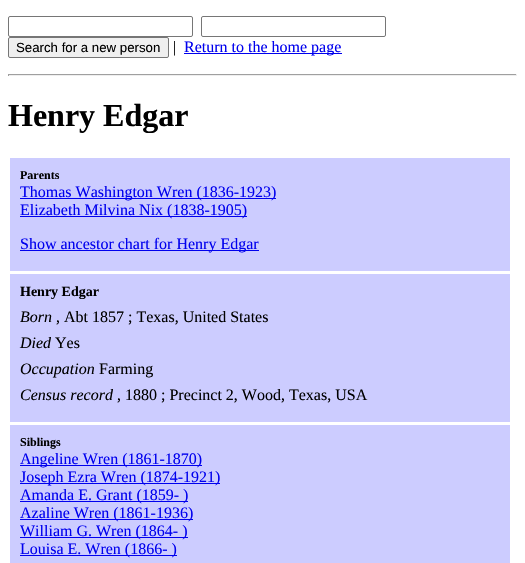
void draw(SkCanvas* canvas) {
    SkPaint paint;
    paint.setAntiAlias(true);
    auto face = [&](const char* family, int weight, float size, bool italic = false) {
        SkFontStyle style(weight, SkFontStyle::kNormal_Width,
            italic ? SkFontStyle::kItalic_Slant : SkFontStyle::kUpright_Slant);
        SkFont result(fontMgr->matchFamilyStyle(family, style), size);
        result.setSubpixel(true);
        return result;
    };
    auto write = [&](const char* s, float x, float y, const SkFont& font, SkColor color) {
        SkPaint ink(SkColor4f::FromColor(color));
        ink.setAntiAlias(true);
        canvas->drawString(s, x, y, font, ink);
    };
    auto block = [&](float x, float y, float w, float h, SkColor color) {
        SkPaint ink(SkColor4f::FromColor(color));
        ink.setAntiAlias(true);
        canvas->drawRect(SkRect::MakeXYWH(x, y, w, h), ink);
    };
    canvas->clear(SK_ColorWHITE);
    paint.setStyle(SkPaint::kStroke_Style);
    paint.setStrokeWidth(1);
    paint.setColor(SkColorSetRGB(118, 118, 118));
    canvas->drawRoundRect(SkRect::MakeXYWH(8.5f, 16.5f, 184, 20), 1.5f, 1.5f, paint);
    canvas->drawRoundRect(SkRect::MakeXYWH(201.5f, 16.5f, 184, 20), 1.5f, 1.5f, paint);
    paint.setStyle(SkPaint::kFill_Style);
    paint.setColor(SkColorSetRGB(239, 239, 239));
    canvas->drawRoundRect(SkRect::MakeXYWH(8.5f, 37.5f, 160, 20), 1.5f, 1.5f, paint);
    paint.setStyle(SkPaint::kStroke_Style);
    paint.setColor(SkColorSetRGB(118, 118, 118));
    canvas->drawRoundRect(SkRect::MakeXYWH(8.5f, 37.5f, 160, 20), 1.5f, 1.5f, paint);
    auto kFont1 = face("Liberation Sans", 400, 13.25f);
    write("Search for a new person", 16, 52, kFont1, SK_ColorBLACK);
    auto kFont2 = face("Liberation Serif", 400, 16);
    write("|", 173, 52, kFont2, SK_ColorBLACK);
    block(184, 53, 158, 1, SkColorSetRGB(0, 0, 238));
    write("Return to the home page", 184, 52, kFont2, SkColorSetRGB(0, 0, 238));
    block(8, 74, 509, 1, SkColorSetRGB(159, 159, 159));
    block(516, 74, 1, 2, SkColorSetRGB(238, 238, 238));
    block(8, 75, 509, 1, SkColorSetRGB(238, 238, 238));
    block(8, 74, 1, 2, SkColorSetRGB(159, 159, 159));
    auto kFont3 = face("Liberation Serif", 700, 32);
    write("Henry Edgar", 8, 126, kFont3, SK_ColorBLACK);
    block(10, 158, 500, 113, SkColorSetRGB(204, 204, 255));
    auto kFont4 = face("Liberation Serif", 700, 12);
    write("Parents", 20, 179, kFont4, SK_ColorBLACK);
    block(20, 198, 256, 1, SkColorSetRGB(0, 0, 238));
    write("Thomas Washington Wren (1836-1923)", 20, 197, kFont2, SkColorSetRGB(0, 0, 238));
    block(20, 216, 227, 1, SkColorSetRGB(0, 0, 238));
    write("Elizabeth Milvina Nix (1838-1905)", 20, 215, kFont2, SkColorSetRGB(0, 0, 238));
    block(20, 250, 239, 1, SkColorSetRGB(0, 0, 238));
    write("Show ancestor chart for Henry Edgar", 20, 249, kFont2, SkColorSetRGB(0, 0, 238));
    block(10, 274, 500, 148, SkColorSetRGB(204, 204, 255));
    auto kFont5 = face("Liberation Serif", 700, 14);
    write("Henry Edgar", 20, 296, kFont5, SK_ColorBLACK);
    auto kFont6 = face("Liberation Serif", 400, 16, true);
    write("Born", 20, 322, kFont6, SK_ColorBLACK);
    write(", Abt 1857 ; Texas, United States", 56, 322, kFont2, SK_ColorBLACK);
    write("Died", 20, 348, kFont6, SK_ColorBLACK);
    write("Yes", 55, 348, kFont2, SK_ColorBLACK);
    write("Occupation", 20, 374, kFont6, SK_ColorBLACK);
    write("Farming", 99, 374, kFont2, SK_ColorBLACK);
    write("Census record", 20, 400, kFont6, SK_ColorBLACK);
    write(", 1880 ; Precinct 2, Wood, Texas, USA", 117, 400, kFont2, SK_ColorBLACK);
    block(10, 425, 500, 138, SkColorSetRGB(204, 204, 255));
    write("Siblings", 20, 446, kFont4, SK_ColorBLACK);
    block(20, 465, 182, 1, SkColorSetRGB(0, 0, 238));
    write("Angeline Wren (1861-1870)", 20, 464, kFont2, SkColorSetRGB(0, 0, 238));
    block(20, 483, 200, 1, SkColorSetRGB(0, 0, 238));
    write("Joseph Ezra Wren (1874-1921)", 20, 482, kFont2, SkColorSetRGB(0, 0, 238));
    block(20, 501, 168, 1, SkColorSetRGB(0, 0, 238));
    write("Amanda E. Grant (1859- )", 20, 500, kFont2, SkColorSetRGB(0, 0, 238));
    block(20, 519, 173, 1, SkColorSetRGB(0, 0, 238));
    write("Azaline Wren (1861-1936)", 20, 518, kFont2, SkColorSetRGB(0, 0, 238));
    block(20, 537, 168, 1, SkColorSetRGB(0, 0, 238));
    write("William G. Wren (1864- )", 20, 536, kFont2, SkColorSetRGB(0, 0, 238));
    block(20, 555, 157, 1, SkColorSetRGB(0, 0, 238));
    write("Louisa E. Wren (1866- )", 20, 554, kFont2, SkColorSetRGB(0, 0, 238));
}
